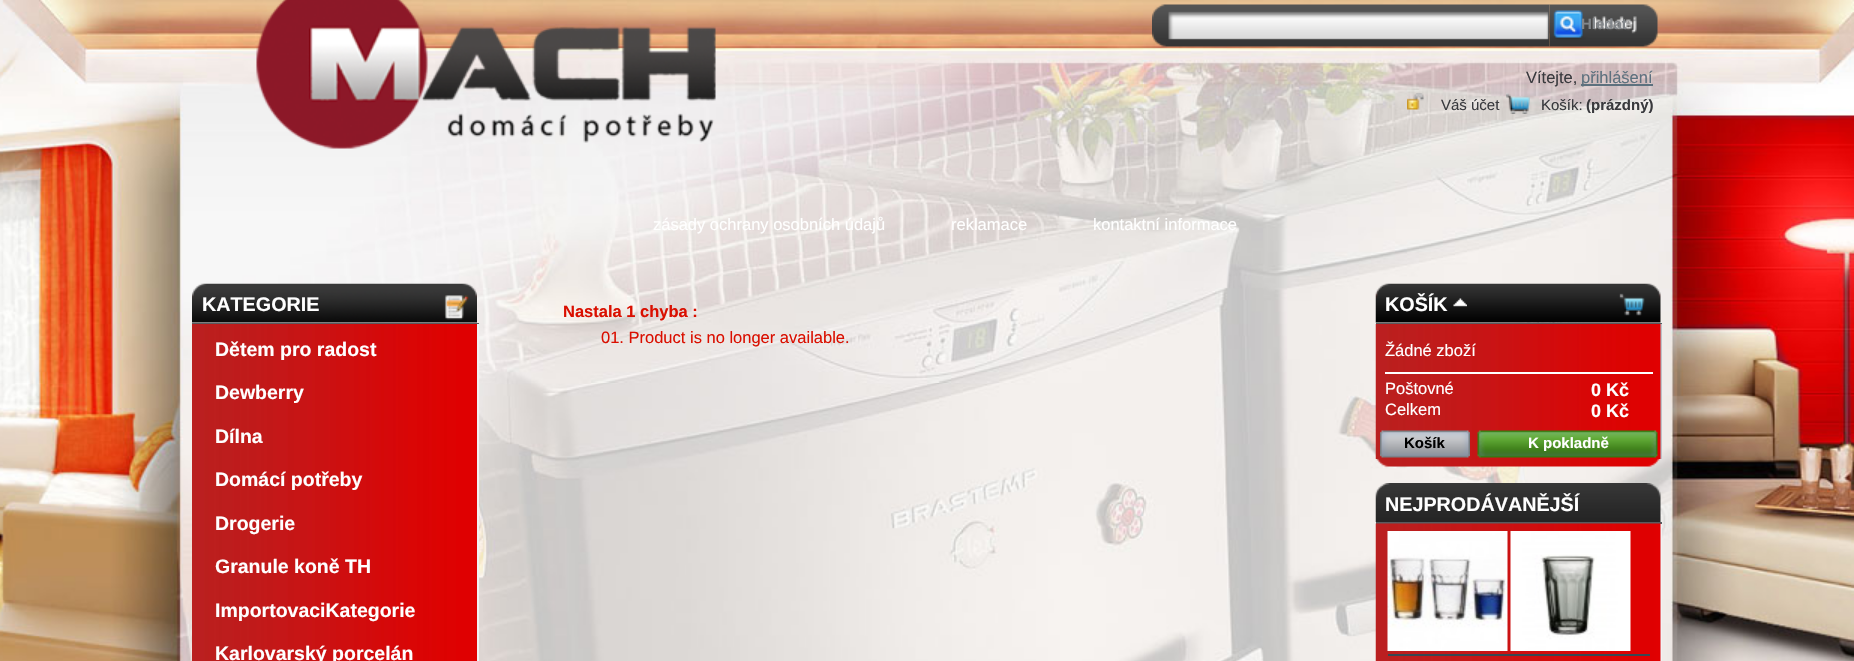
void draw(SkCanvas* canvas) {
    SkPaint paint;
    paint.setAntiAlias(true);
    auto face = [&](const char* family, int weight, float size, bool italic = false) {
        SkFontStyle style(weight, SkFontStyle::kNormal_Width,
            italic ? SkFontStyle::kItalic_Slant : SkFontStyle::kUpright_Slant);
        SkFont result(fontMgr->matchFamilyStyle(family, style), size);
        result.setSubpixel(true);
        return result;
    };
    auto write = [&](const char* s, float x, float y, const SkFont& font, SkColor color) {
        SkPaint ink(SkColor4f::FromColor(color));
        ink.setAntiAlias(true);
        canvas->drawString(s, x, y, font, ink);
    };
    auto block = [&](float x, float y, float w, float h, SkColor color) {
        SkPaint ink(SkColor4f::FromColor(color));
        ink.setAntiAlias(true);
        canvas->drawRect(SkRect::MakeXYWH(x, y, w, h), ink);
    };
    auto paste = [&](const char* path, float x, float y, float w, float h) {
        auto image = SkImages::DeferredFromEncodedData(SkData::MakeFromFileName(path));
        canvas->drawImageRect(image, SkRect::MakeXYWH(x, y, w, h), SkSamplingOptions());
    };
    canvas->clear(SK_ColorWHITE);
    paste("pic1.png", 0, 0, 1854, 661);
    paste("pic2.png", 256, 0, 460, 149);
    paste("pic3.png", 1152, 4, 398, 43);
    paste("pic4.png", 1549, 4, 109, 43);
    auto kFont1 = face("Liberation Sans", 700, 15);
    write("Hledat", 1581, 29, kFont1, SkColorSetRGB(130, 134, 138));
    auto kFont2 = face("Liberation Sans", 400, 16.5f);
    write("Vítejte,", 1526, 83, kFont2, SkColorSetRGB(57, 58, 62));
    block(1581, 84, 72, 2, SkColorSetRGB(93, 113, 126));
    write("přihlášení", 1581, 83, kFont2, SkColorSetRGB(93, 113, 126));
    paste("pic5.png", 1407, 93, 17, 17);
    auto kFont3 = face("Liberation Sans", 400, 15);
    write("Váš účet", 1441, 110, kFont3, SkColorSetRGB(57, 58, 62));
    paste("pic6.png", 1506, 93, 24, 21);
    write("Košík:", 1541, 110, kFont3, SkColorSetRGB(57, 58, 62));
    write("(prázdný)", 1586, 110, kFont1, SkColorSetRGB(57, 58, 62));
    write("zásady ochrany osobních údajů", 653, 230, kFont2, SK_ColorWHITE);
    write("reklamace", 951, 230, kFont2, SK_ColorWHITE);
    write("kontaktní informace", 1093, 230, kFont2, SK_ColorWHITE);
    paste("pic7.png", 192, 283, 285, 40);
    block(192, 323, 287, 1, SkColorSetRGB(89, 90, 94));
    auto kFont4 = face("Liberation Sans", 700, 19.75f);
    write("KATEGORIE", 202, 311, kFont4, SK_ColorWHITE);
    block(477, 324, 2, 337, SkColorSetRGB(241, 242, 244));
    paste("pic8.png", 192, 324, 285, 337);
    auto kFont5 = face("Liberation Sans", 700, 19.5f);
    write("Dětem pro radost", 215, 356, kFont5, SK_ColorWHITE);
    write("Dewberry", 215, 399, kFont5, SK_ColorWHITE);
    write("Dílna", 215, 443, kFont5, SK_ColorWHITE);
    write("Domácí potřeby", 215, 486, kFont5, SK_ColorWHITE);
    write("Drogerie", 215, 530, kFont5, SK_ColorWHITE);
    write("Granule koně TH", 215, 573, kFont5, SK_ColorWHITE);
    write("ImportovaciKategorie", 215, 617, kFont5, SK_ColorWHITE);
    write("Karlovarský porcelán", 215, 660, kFont5, SK_ColorWHITE);
    auto kFont6 = face("Liberation Sans", 700, 16.5f);
    write("Nastala 1 chyba :", 563, 317, kFont6, SkColorSetRGB(218, 15, 0));
    write("01. Product is no longer available.", 601, 343, kFont2, SkColorSetRGB(218, 15, 0));
    paste("pic9.png", 1376, 459, 284, 8);
    paste("pic10.png", 1375, 283, 286, 40);
    block(1376, 323, 286, 1, SkColorSetRGB(89, 90, 94));
    write("KOŠÍK", 1385, 311, kFont4, SK_ColorWHITE);
    paste("pic11.png", 1453, 298, 14, 9);
    block(1660, 324, 2, 135, SkColorSetRGB(189, 194, 201));
    paste("pic12.png", 1375, 324, 286, 135);
    write("Žádné zboží", 1385, 356, kFont2, SK_ColorWHITE);
    block(1385, 372, 268, 2, SK_ColorWHITE);
    write("Poštovné", 1385, 394, kFont2, SK_ColorWHITE);
    auto kFont7 = face("Liberation Sans", 700, 18);
    write("0 Kč", 1591, 396, kFont7, SK_ColorWHITE);
    write("Celkem", 1385, 415, kFont2, SK_ColorWHITE);
    write("0 Kč", 1591, 417, kFont7, SK_ColorWHITE);
    paste("pic13.png", 1380, 430, 90, 28);
    write("Košík", 1404, 448, kFont1, SK_ColorBLACK);
    paste("pic14.png", 1477, 430, 181, 28);
    write("K pokladně", 1528, 448, kFont1, SK_ColorWHITE);
    paste("pic15.png", 1375, 483, 286, 39);
    block(1376, 522, 286, 2, SkColorSetRGB(89, 90, 94));
    write("NEJPRODÁVANĚJŠÍ", 1385, 511, kFont4, SK_ColorWHITE);
    block(1660, 524, 2, 137, SkColorSetRGB(241, 242, 244));
    paste("pic16.png", 1375, 523, 286, 138);
    paste("pic17.png", 1387, 531, 121, 120);
    paste("pic18.png", 1510, 531, 121, 120);
    block(1388, 654, 262, 2, SkColorSetRGB(55, 72, 83));
}
